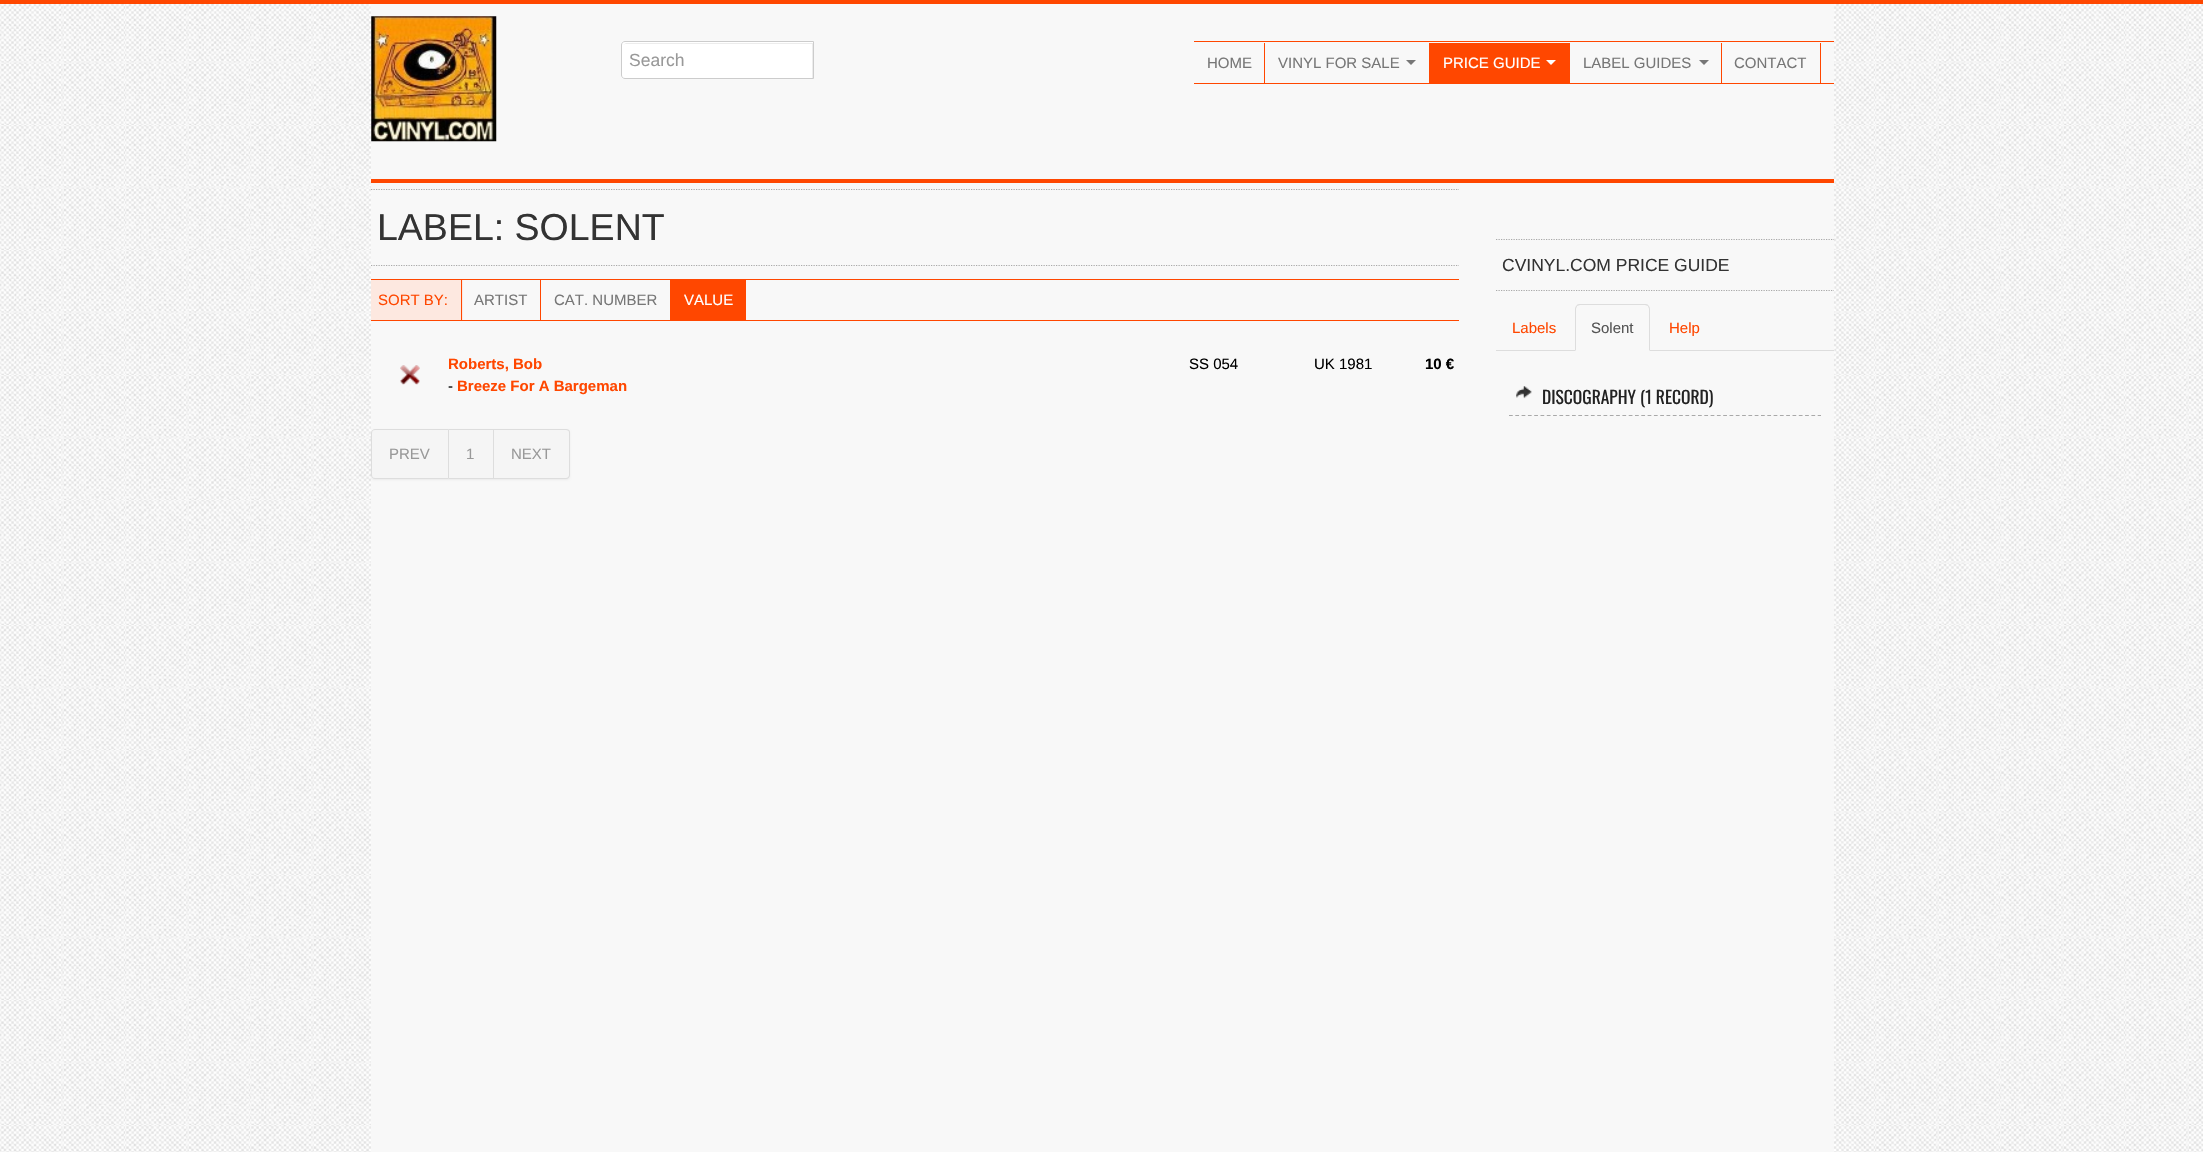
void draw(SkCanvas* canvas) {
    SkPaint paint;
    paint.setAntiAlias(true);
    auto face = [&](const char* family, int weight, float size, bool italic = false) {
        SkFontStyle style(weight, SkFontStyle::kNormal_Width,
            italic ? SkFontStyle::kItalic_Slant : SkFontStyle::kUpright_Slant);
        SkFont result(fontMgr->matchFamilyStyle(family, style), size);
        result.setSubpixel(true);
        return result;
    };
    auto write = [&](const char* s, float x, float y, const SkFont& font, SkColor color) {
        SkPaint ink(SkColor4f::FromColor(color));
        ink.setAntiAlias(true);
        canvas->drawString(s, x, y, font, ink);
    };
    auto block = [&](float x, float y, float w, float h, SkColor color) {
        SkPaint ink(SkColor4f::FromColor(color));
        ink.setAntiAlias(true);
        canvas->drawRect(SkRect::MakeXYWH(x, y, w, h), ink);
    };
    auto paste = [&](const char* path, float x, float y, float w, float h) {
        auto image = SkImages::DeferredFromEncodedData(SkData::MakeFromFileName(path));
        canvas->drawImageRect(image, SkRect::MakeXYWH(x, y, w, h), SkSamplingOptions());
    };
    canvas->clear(SK_ColorWHITE);
    paste("pic1.png", 0, 4, 2203, 1148);
    block(0, 0, 2203, 4, SkColorSetRGB(255, 71, 0));
    block(371, 4, 1463, 1148, SkColorSetRGB(248, 248, 248));
    paste("pic2.png", 371, 16, 126, 126);
    paint.setColor(SK_ColorWHITE);
    canvas->drawPath(SkPathBuilder().moveTo(625, 41).lineTo(814, 41).lineTo(814, 79).lineTo(625, 79).cubicTo(623, 79, 621, 77, 621, 75).lineTo(621, 45).cubicTo(621, 43, 623, 41, 625, 41).close().detach(), paint);
    paint.setColor(SkColorSetRGB(236, 236, 236));
    canvas->drawPath(SkPathBuilder().moveTo(625, 44).lineTo(812, 44).lineTo(812, 78).lineTo(813, 78).lineTo(813, 43).lineTo(626, 43).lineTo(623, 45).close().detach(), paint);
    paint.setStyle(SkPaint::kStroke_Style);
    paint.setStrokeWidth(1);
    paint.setColor(SkColorSetRGB(204, 204, 204));
    canvas->drawPath(SkPathBuilder().moveTo(625, 41.5f).lineTo(813.5f, 41.5f).lineTo(813.5f, 78.5f).lineTo(625, 78.5f).cubicTo(623, 78.5f, 621.5f, 77, 621.5f, 75).lineTo(621.5f, 45).cubicTo(621.5f, 43, 623, 41.5f, 625, 41.5f).close().detach(), paint);
    auto kFont1 = face("Liberation Sans", 400, 17.5f);
    write("Search", 629, 66, kFont1, SkColorSetRGB(153, 153, 153));
    block(1194, 41, 640, 1, SkColorSetRGB(255, 71, 0));
    block(1194, 83, 640, 1, SkColorSetRGB(255, 71, 0));
    block(1264, 43, 1, 40, SkColorSetRGB(255, 71, 0));
    auto kFont2 = face("Liberation Sans", 400, 15);
    write("HOME", 1207, 68, kFont2, SkColorSetRGB(119, 119, 119));
    block(1429, 43, 1, 40, SkColorSetRGB(255, 71, 0));
    write("VINYL FOR SALE", 1278, 68, kFont2, SkColorSetRGB(119, 119, 119));
    paint.setStyle(SkPaint::kFill_Style);
    paint.setColor(SkColorSetRGB(119, 119, 119));
    canvas->drawPath(SkPathBuilder().moveTo(1406, 60).lineTo(1416, 60).lineTo(1411, 65).close().detach(), paint);
    block(1430, 43, 140, 40, SkColorSetRGB(255, 71, 0));
    write("PRICE GUIDE", 1443, 68, kFont2, SK_ColorWHITE);
    paint.setColor(SK_ColorWHITE);
    canvas->drawPath(SkPathBuilder().moveTo(1546, 60).lineTo(1556, 60).lineTo(1551, 65).close().detach(), paint);
    block(1721, 43, 1, 40, SkColorSetRGB(255, 71, 0));
    write("LABEL GUIDES", 1583, 68, kFont2, SkColorSetRGB(119, 119, 119));
    paint.setColor(SkColorSetRGB(119, 119, 119));
    canvas->drawPath(SkPathBuilder().moveTo(1699, 60).lineTo(1709, 60).lineTo(1704, 65).close().detach(), paint);
    block(1820, 43, 1, 40, SkColorSetRGB(255, 71, 0));
    write("CONTACT", 1734, 68, kFont2, SkColorSetRGB(119, 119, 119));
    block(371, 179, 1463, 4, SkColorSetRGB(255, 71, 0));
    paint.setStyle(SkPaint::kStroke_Style);
    paint.setStrokeWidth(1.2f);
    paint.setColor(SkColorSetRGB(169, 169, 169));
    paint.setPathEffect(SkDashPathEffect::Make({{1.25f, 1.25f}}, 0));
    canvas->drawPath(SkPathBuilder().moveTo(371, 189.5f).lineTo(1459, 189.5f).detach(), paint);
    paint.setPathEffect(nullptr);
    paint.setPathEffect(SkDashPathEffect::Make({{1.25f, 1.25f}}, 0));
    canvas->drawPath(SkPathBuilder().moveTo(371, 265.5f).lineTo(1459, 265.5f).detach(), paint);
    paint.setPathEffect(nullptr);
    auto kFont3 = face("Liberation Sans", 400, 37.5f);
    write("LABEL: SOLENT", 377, 240, kFont3, SkColorSetRGB(51, 51, 51));
    block(371, 279, 1088, 1, SkColorSetRGB(255, 71, 0));
    block(371, 320, 1088, 1, SkColorSetRGB(255, 71, 0));
    block(371, 280, 92, 40, SkColorSetRGB(253, 232, 224));
    block(461, 280, 1, 40, SkColorSetRGB(255, 71, 0));
    write("SORT BY:", 378, 305, kFont2, SkColorSetRGB(255, 71, 0));
    block(540, 280, 1, 40, SkColorSetRGB(255, 71, 0));
    write("ARTIST", 474, 305, kFont2, SkColorSetRGB(119, 119, 119));
    block(670, 280, 1, 40, SkColorSetRGB(255, 71, 0));
    write("CAT. NUMBER", 554, 305, kFont2, SkColorSetRGB(119, 119, 119));
    block(671, 280, 75, 40, SkColorSetRGB(255, 71, 0));
    write("VALUE", 684, 305, kFont2, SK_ColorWHITE);
    paste("pic3.png", 400, 365, 20, 20);
    auto kFont4 = face("Liberation Sans", 700, 15);
    write("Roberts, Bob", 448, 369, kFont4, SkColorSetRGB(255, 71, 0));
    write("SS 054", 1189, 369, kFont2, SK_ColorBLACK);
    write("UK 1981", 1314, 369, kFont2, SK_ColorBLACK);
    write("10 €", 1425, 369, kFont4, SK_ColorBLACK);
    write("-", 448, 391, kFont2, SK_ColorBLACK);
    write("Breeze For A Bargeman", 457, 391, kFont4, SkColorSetRGB(255, 71, 0));
    paint.setStyle(SkPaint::kFill_Style);
    paint.setColor(SkColorSetARGB(13, 0, 0, 0));
    paint.setMaskFilter(SkMaskFilter::MakeBlur(kNormal_SkBlurStyle, 1));
    canvas->drawRoundRect(SkRect::MakeXYWH(371, 430, 199, 50), 4, 4, paint);
    paint.setMaskFilter(nullptr);
    paint.setColor(SkColorSetRGB(245, 245, 245));
    canvas->drawPath(SkPathBuilder().moveTo(375, 429.5f).lineTo(448.5f, 429.5f).lineTo(448.5f, 478.5f).lineTo(375, 478.5f).cubicTo(373, 478.5f, 371.5f, 477, 371.5f, 475).lineTo(371.5f, 433).cubicTo(371.5f, 431, 373, 429.5f, 375, 429.5f).close().detach(), paint);
    paint.setStyle(SkPaint::kStroke_Style);
    paint.setStrokeWidth(1);
    paint.setColor(SkColorSetRGB(221, 221, 221));
    canvas->drawPath(SkPathBuilder().moveTo(375, 429.5f).lineTo(448.5f, 429.5f).lineTo(448.5f, 478.5f).lineTo(375, 478.5f).cubicTo(373, 478.5f, 371.5f, 477, 371.5f, 475).lineTo(371.5f, 433).cubicTo(371.5f, 431, 373, 429.5f, 375, 429.5f).close().detach(), paint);
    write("PREV", 389, 459, kFont2, SkColorSetRGB(153, 153, 153));
    block(449, 430, 44, 48, SkColorSetRGB(245, 245, 245));
    block(449, 429, 45, 1, SkColorSetRGB(221, 221, 221));
    block(493, 429, 1, 50, SkColorSetRGB(221, 221, 221));
    block(449, 478, 45, 1, SkColorSetRGB(221, 221, 221));
    write("1", 466, 459, kFont2, SkColorSetRGB(153, 153, 153));
    paint.setStyle(SkPaint::kFill_Style);
    paint.setColor(SkColorSetRGB(245, 245, 245));
    canvas->drawPath(SkPathBuilder().moveTo(494, 430).lineTo(566.5f, 430).cubicTo(568, 430, 569, 431, 569, 432.5f).lineTo(569, 475.5f).cubicTo(569, 477, 568, 478, 566.5f, 478).lineTo(494, 478).close().detach(), paint);
    paint.setColor(SkColorSetRGB(221, 221, 221));
    canvas->drawPath(SkPathBuilder(SkPathFillType::kEvenOdd).moveTo(494, 429).lineTo(566, 429).cubicTo(568, 429, 570, 430, 570, 432).lineTo(570, 475).cubicTo(570, 477, 568, 479, 566, 479).lineTo(494, 479).close().moveTo(494, 430).lineTo(566, 430).cubicTo(568, 430, 569, 431, 569, 432).lineTo(569, 475).cubicTo(569, 476, 568, 478, 566, 478).lineTo(494, 478).close().detach(), paint);
    write("NEXT", 511, 459, kFont2, SkColorSetRGB(153, 153, 153));
    paint.setStyle(SkPaint::kStroke_Style);
    paint.setStrokeWidth(1.2f);
    paint.setColor(SkColorSetRGB(169, 169, 169));
    paint.setPathEffect(SkDashPathEffect::Make({{1.25f, 1.25f}}, 0));
    canvas->drawPath(SkPathBuilder().moveTo(1496, 239.5f).lineTo(1834, 239.5f).detach(), paint);
    paint.setPathEffect(nullptr);
    paint.setPathEffect(SkDashPathEffect::Make({{1.25f, 1.25f}}, 0));
    canvas->drawPath(SkPathBuilder().moveTo(1496, 290.5f).lineTo(1834, 290.5f).detach(), paint);
    paint.setPathEffect(nullptr);
    write("CVINYL.COM PRICE GUIDE", 1502, 271, kFont1, SkColorSetRGB(51, 51, 51));
    block(1496, 350, 338, 1, SkColorSetRGB(221, 221, 221));
    write("Labels", 1512, 333, kFont2, SkColorSetRGB(255, 71, 0));
    paint.setStyle(SkPaint::kFill_Style);
    paint.setColor(SkColorSetRGB(248, 248, 248));
    canvas->drawPath(SkPathBuilder().moveTo(1580, 304).lineTo(1645, 304).cubicTo(1648, 304, 1650, 306, 1650, 309).lineTo(1650, 351).lineTo(1575, 351).lineTo(1575, 309).cubicTo(1575, 306, 1577, 304, 1580, 304).close().detach(), paint);
    paint.setColor(SkColorSetRGB(221, 221, 221));
    canvas->drawPath(SkPathBuilder().moveTo(1580, 304).cubicTo(1579, 304, 1577, 304, 1577, 305).lineTo(1577, 306).lineTo(1580, 305).lineTo(1645, 305).lineTo(1648, 306).lineTo(1648, 305).cubicTo(1648, 304, 1646, 304, 1645, 304).close().detach(), paint);
    canvas->drawPath(SkPathBuilder().moveTo(1648, 305).cubicTo(1649, 306, 1650, 307, 1650, 309).lineTo(1650, 351).lineTo(1649, 350).lineTo(1649, 309).cubicTo(1649, 308, 1648, 307, 1648, 306).close().detach(), paint);
    canvas->drawPath(SkPathBuilder().moveTo(1575, 309).lineTo(1575, 351).lineTo(1576, 350).lineTo(1576, 309).cubicTo(1576, 308, 1577, 307, 1577, 306).lineTo(1577, 305).cubicTo(1576, 306, 1575, 307, 1575, 309).close().detach(), paint);
    write("Solent", 1591, 333, kFont2, SkColorSetRGB(85, 85, 85));
    write("Help", 1669, 333, kFont2, SkColorSetRGB(255, 71, 0));
    paint.setStyle(SkPaint::kStroke_Style);
    paint.setColor(SkColorSetRGB(169, 169, 169));
    paint.setPathEffect(SkDashPathEffect::Make({{3.75f, 2.55f}}, 0));
    canvas->drawPath(SkPathBuilder().moveTo(1509, 415.5f).lineTo(1821, 415.5f).detach(), paint);
    paint.setPathEffect(nullptr);
    paste("pic4.png", 1516, 386, 16, 13);
    auto kFont5 = face("Oswald", 400, 17.5f);
    write("DISCOGRAPHY (1 RECORD)", 1542, 404, kFont5, SkColorSetRGB(34, 34, 34));
}
